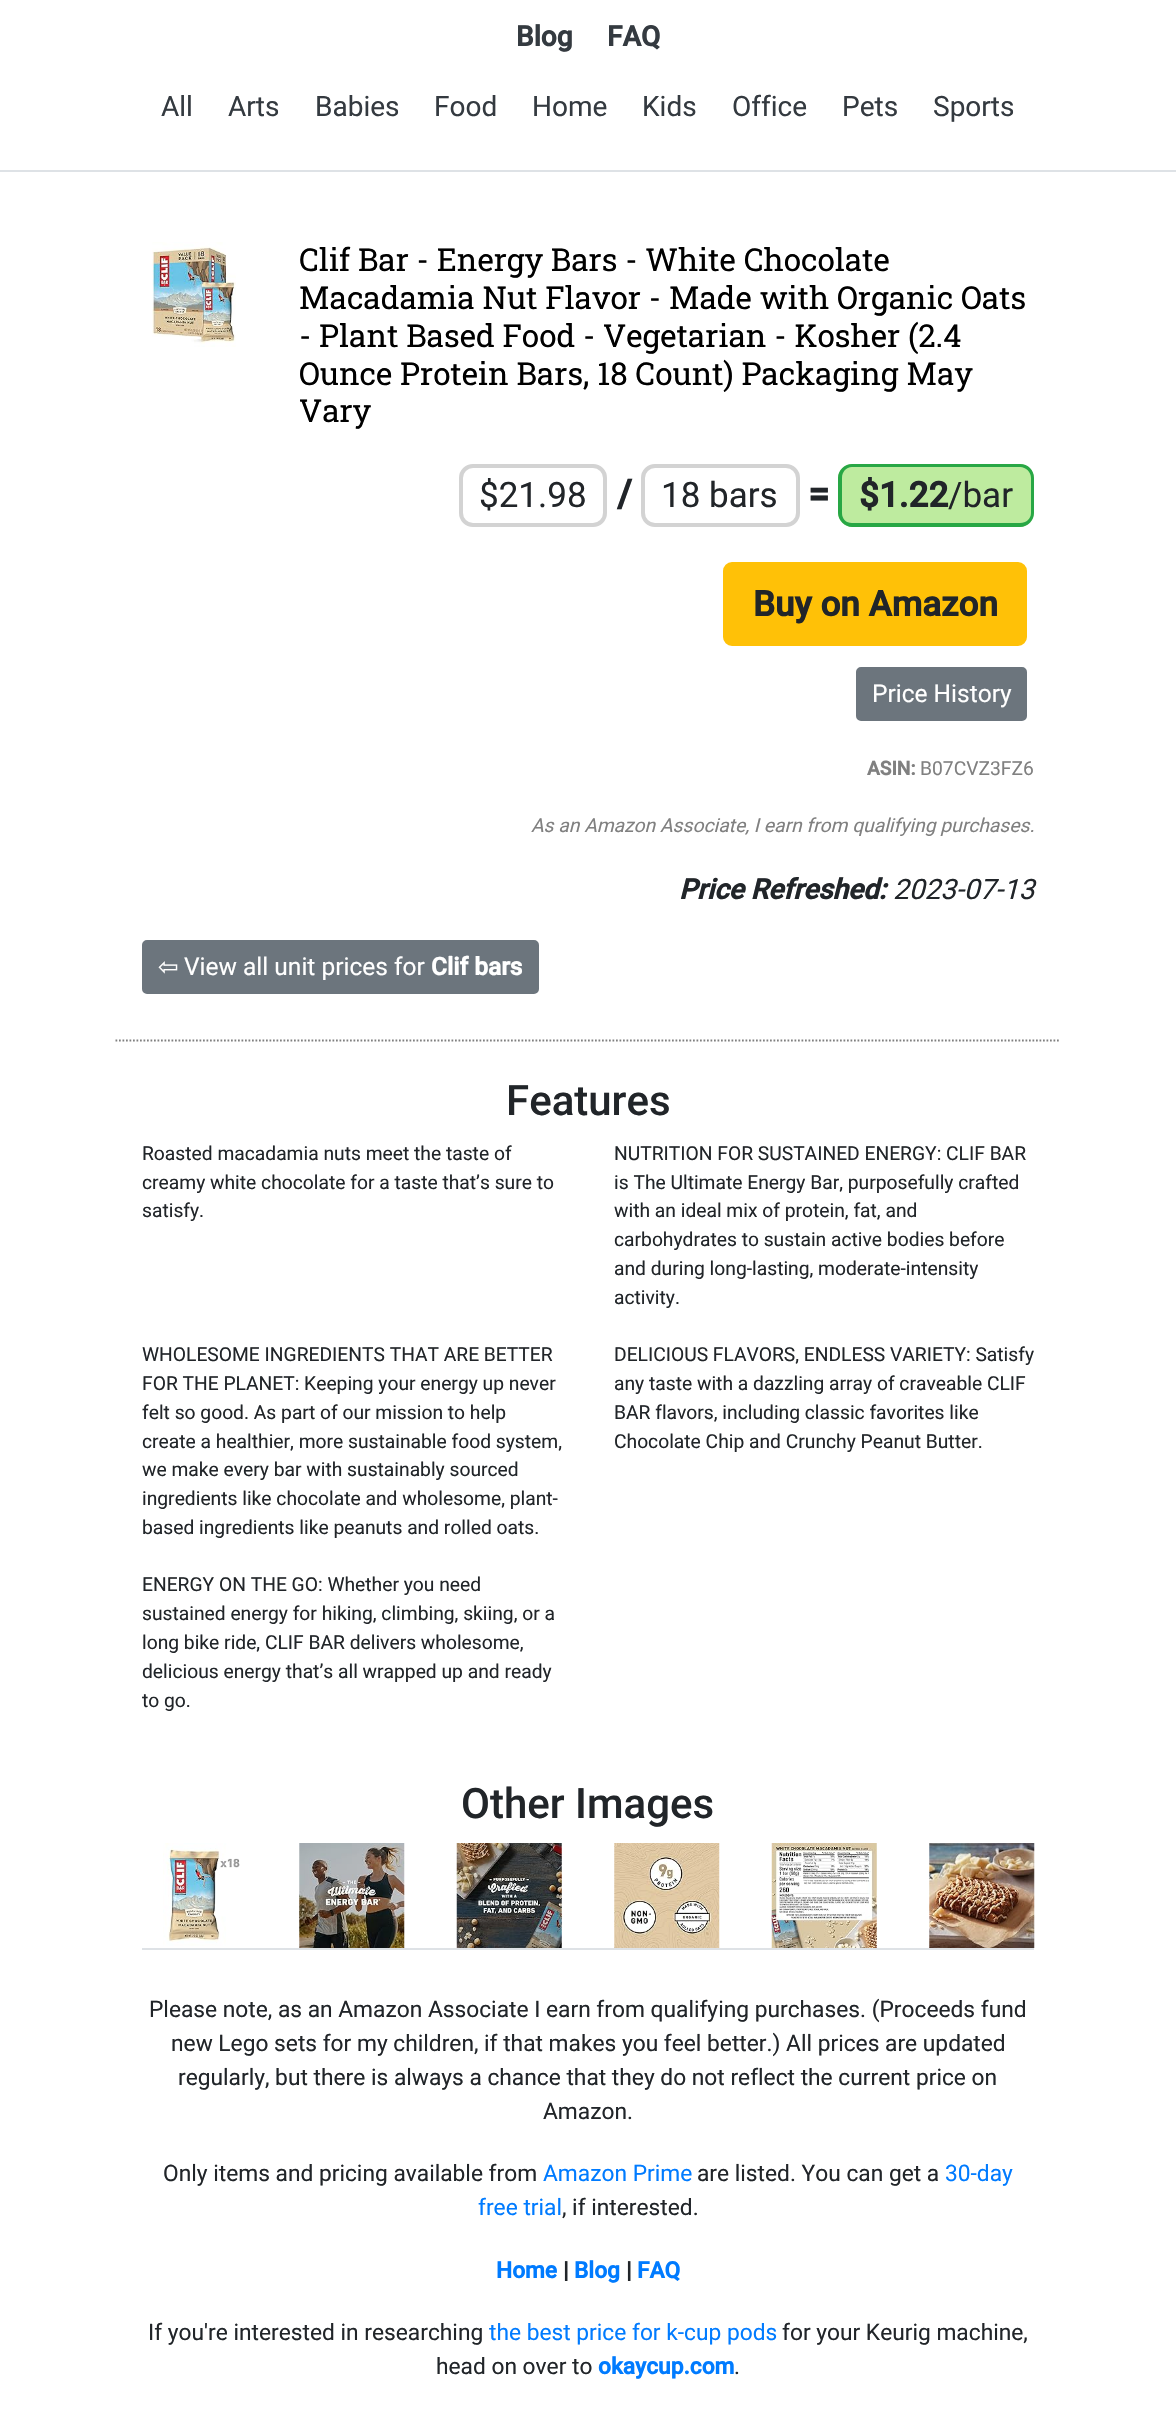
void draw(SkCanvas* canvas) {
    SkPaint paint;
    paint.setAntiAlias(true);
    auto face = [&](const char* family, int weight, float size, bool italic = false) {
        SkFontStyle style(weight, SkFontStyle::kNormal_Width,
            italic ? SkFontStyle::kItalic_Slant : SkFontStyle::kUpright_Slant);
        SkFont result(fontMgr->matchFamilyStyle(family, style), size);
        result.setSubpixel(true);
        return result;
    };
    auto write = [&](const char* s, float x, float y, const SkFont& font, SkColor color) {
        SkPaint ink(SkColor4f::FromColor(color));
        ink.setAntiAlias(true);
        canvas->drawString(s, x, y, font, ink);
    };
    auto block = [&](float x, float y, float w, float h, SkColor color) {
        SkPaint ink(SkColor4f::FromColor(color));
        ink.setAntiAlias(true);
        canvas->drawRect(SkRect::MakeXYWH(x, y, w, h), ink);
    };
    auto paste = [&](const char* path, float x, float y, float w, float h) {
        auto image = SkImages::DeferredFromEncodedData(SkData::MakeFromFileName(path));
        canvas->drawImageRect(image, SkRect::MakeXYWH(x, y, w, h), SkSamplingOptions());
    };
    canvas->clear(SK_ColorWHITE);
    block(0, 170, 1176, 2, SkColorSetRGB(222, 226, 230));
    auto kFont1 = face("Roboto", 700, 28);
    write("Blog", 516, 46, kFont1, SkColorSetRGB(52, 58, 64));
    write("FAQ", 607, 46, kFont1, SkColorSetRGB(52, 58, 64));
    auto kFont2 = face("Roboto", 400, 28);
    write("All", 161, 116, kFont2, SkColorSetRGB(52, 58, 64));
    write("Arts", 228, 116, kFont2, SkColorSetRGB(52, 58, 64));
    write("Babies", 315, 116, kFont2, SkColorSetRGB(52, 58, 64));
    write("Food", 434, 116, kFont2, SkColorSetRGB(52, 58, 64));
    write("Home", 532, 116, kFont2, SkColorSetRGB(52, 58, 64));
    write("Kids", 642, 116, kFont2, SkColorSetRGB(52, 58, 64));
    write("Office", 732, 116, kFont2, SkColorSetRGB(52, 58, 64));
    write("Pets", 842, 116, kFont2, SkColorSetRGB(52, 58, 64));
    write("Sports", 933, 116, kFont2, SkColorSetRGB(52, 58, 64));
    paint.setStyle(SkPaint::kStroke_Style);
    paint.setStrokeWidth(1.8f);
    paint.setColor(SkColorSetRGB(128, 128, 128));
    paint.setPathEffect(SkDashPathEffect::Make({{1.75f, 1.75f}}, 0));
    canvas->drawPath(SkPathBuilder().moveTo(115.5f, 1040.5f).lineTo(1060.5f, 1040.5f).detach(), paint);
    paint.setPathEffect(nullptr);
    paste("pic1.png", 152, 242, 84, 105);
    auto kFont3 = face("Roboto Slab", 400, 31.5f);
    write("Clif Bar - Energy Bars - White Chocolate", 299, 271, kFont3, SK_ColorBLACK);
    write("Macadamia Nut Flavor - Made with Organic Oats", 299, 309, kFont3, SK_ColorBLACK);
    write("- Plant Based Food - Vegetarian - Kosher (2.4", 299, 347, kFont3, SK_ColorBLACK);
    write("Ounce Protein Bars, 18 Count) Packaging May", 299, 385, kFont3, SK_ColorBLACK);
    write("Vary", 299, 422, kFont3, SK_ColorBLACK);
    paint.setStrokeWidth(4);
    paint.setColor(SkColorSetRGB(211, 211, 211));
    canvas->drawRoundRect(SkRect::MakeXYWH(461, 466, 144, 59), 12, 12, paint);
    auto kFont4 = face("Roboto", 400, 35);
    write("$21.98", 479, 507, kFont4, SkColorSetRGB(33, 37, 41));
    auto kFont5 = face("Roboto", 700, 38);
    write("/", 617, 507, kFont5, SkColorSetRGB(33, 37, 41));
    canvas->drawRoundRect(SkRect::MakeXYWH(643, 466, 155, 59), 12, 12, paint);
    write("18 bars", 661, 507, kFont4, SkColorSetRGB(33, 37, 41));
    write("=", 808, 507, kFont5, SkColorSetRGB(33, 37, 41));
    paint.setStyle(SkPaint::kFill_Style);
    paint.setColor(SkColorSetRGB(190, 235, 159));
    canvas->drawPath(SkPathBuilder().moveTo(852, 464).lineTo(949, 464).lineTo(949, 527).lineTo(852, 527).cubicTo(844.5f, 527, 838, 520.5f, 838, 513).lineTo(838, 478).cubicTo(838, 470.5f, 844.5f, 464, 852, 464).close().detach(), paint);
    paint.setColor(SkColorSetRGB(40, 167, 69));
    canvas->drawPath(SkPathBuilder(SkPathFillType::kEvenOdd).moveTo(852, 464).lineTo(948, 464).lineTo(948, 527).lineTo(852, 527).cubicTo(845, 527, 838, 520, 838, 513).lineTo(838, 478).cubicTo(838, 470, 845, 464, 852, 464).close().moveTo(852, 467).lineTo(948, 467).lineTo(948, 523).lineTo(852, 523).cubicTo(846, 523, 842, 519, 842, 513).lineTo(842, 478).cubicTo(842, 472, 846, 467, 852, 467).close().detach(), paint);
    auto kFont6 = face("Roboto", 700, 35);
    write("$1.22", 859, 507, kFont6, SkColorSetRGB(33, 37, 41));
    paint.setColor(SkColorSetRGB(190, 235, 159));
    canvas->drawPath(SkPathBuilder().moveTo(949, 464).lineTo(1020, 464).cubicTo(1027.5f, 464, 1034, 470.5f, 1034, 478).lineTo(1034, 513).cubicTo(1034, 520.5f, 1027.5f, 527, 1020, 527).lineTo(949, 527).close().detach(), paint);
    paint.setColor(SkColorSetRGB(40, 167, 69));
    canvas->drawPath(SkPathBuilder(SkPathFillType::kEvenOdd).moveTo(948, 464).lineTo(1020, 464).cubicTo(1028, 464, 1034, 470, 1034, 478).lineTo(1034, 513).cubicTo(1034, 520, 1028, 527, 1020, 527).lineTo(948, 527).close().moveTo(948, 467).lineTo(1020, 467).cubicTo(1026, 467, 1031, 472, 1031, 478).lineTo(1031, 513).cubicTo(1031, 519, 1026, 523, 1020, 523).lineTo(948, 523).close().detach(), paint);
    write("/bar", 948, 507, kFont4, SkColorSetRGB(33, 37, 41));
    paint.setColor(SkColorSetRGB(255, 193, 7));
    canvas->drawRoundRect(SkRect::MakeXYWH(724, 563, 302, 82), 8, 8, paint);
    paint.setStyle(SkPaint::kStroke_Style);
    paint.setStrokeWidth(2);
    canvas->drawRoundRect(SkRect::MakeXYWH(724, 563, 302, 82), 8, 8, paint);
    write("Buy on Amazon", 753, 616, kFont6, SkColorSetRGB(33, 37, 41));
    paint.setStyle(SkPaint::kFill_Style);
    paint.setColor(SkColorSetRGB(108, 117, 125));
    canvas->drawRoundRect(SkRect::MakeXYWH(857, 668, 169, 52), 4, 4, paint);
    paint.setStyle(SkPaint::kStroke_Style);
    canvas->drawRoundRect(SkRect::MakeXYWH(857, 668, 169, 52), 4, 4, paint);
    auto kFont7 = face("Roboto", 400, 24.5f);
    write("Price History", 872, 702, kFont7, SK_ColorWHITE);
    auto kFont8 = face("Roboto", 700, 19.25f);
    write("ASIN:", 867, 775, kFont8, SkColorSetRGB(128, 128, 128));
    auto kFont9 = face("Roboto", 400, 19.25f);
    write("B07CVZ3FZ6", 920, 775, kFont9, SkColorSetRGB(128, 128, 128));
    auto kFont10 = face("Roboto", 400, 19.25f, true);
    write("As an Amazon Associate, I earn from qualifying purchases.", 531, 832, kFont10, SkColorSetRGB(128, 128, 128));
    auto kFont11 = face("Roboto", 700, 28, true);
    write("Price Refreshed:", 679, 899, kFont11, SkColorSetRGB(33, 37, 41));
    auto kFont12 = face("Roboto", 400, 28, true);
    write("2023-07-13", 893, 899, kFont12, SkColorSetRGB(33, 37, 41));
    paint.setStyle(SkPaint::kFill_Style);
    canvas->drawRoundRect(SkRect::MakeXYWH(143, 941, 395, 52), 4, 4, paint);
    paint.setStyle(SkPaint::kStroke_Style);
    canvas->drawRoundRect(SkRect::MakeXYWH(143, 941, 395, 52), 4, 4, paint);
    auto kFont13 = face("DejaVu Sans", 400, 24.5f);
    write("⇦", 158, 975, kFont13, SK_ColorWHITE);
    write("View all unit prices for", 184, 975, kFont7, SK_ColorWHITE);
    auto kFont14 = face("Roboto", 700, 24.5f);
    write("Clif bars", 431, 975, kFont14, SK_ColorWHITE);
    auto kFont15 = face("Roboto", 500, 42);
    write("Features", 506, 1115, kFont15, SkColorSetRGB(33, 37, 41));
    write("Roasted macadamia nuts meet the taste of", 142, 1160, kFont9, SkColorSetRGB(33, 37, 41));
    write("creamy white chocolate for a taste that’s sure to", 142, 1189, kFont9, SkColorSetRGB(33, 37, 41));
    write("satisfy.", 142, 1217, kFont9, SkColorSetRGB(33, 37, 41));
    write("NUTRITION FOR SUSTAINED ENERGY: CLIF BAR", 614, 1160, kFont9, SkColorSetRGB(33, 37, 41));
    write("is The Ultimate Energy Bar, purposefully crafted", 614, 1189, kFont9, SkColorSetRGB(33, 37, 41));
    write("with an ideal mix of protein, fat, and", 614, 1217, kFont9, SkColorSetRGB(33, 37, 41));
    write("carbohydrates to sustain active bodies before", 614, 1246, kFont9, SkColorSetRGB(33, 37, 41));
    write("and during long-lasting, moderate-intensity", 614, 1275, kFont9, SkColorSetRGB(33, 37, 41));
    write("activity.", 614, 1304, kFont9, SkColorSetRGB(33, 37, 41));
    write("WHOLESOME INGREDIENTS THAT ARE BETTER", 142, 1361, kFont9, SkColorSetRGB(33, 37, 41));
    write("FOR THE PLANET: Keeping your energy up never", 142, 1390, kFont9, SkColorSetRGB(33, 37, 41));
    write("felt so good. As part of our mission to help", 142, 1419, kFont9, SkColorSetRGB(33, 37, 41));
    write("create a healthier, more sustainable food system,", 142, 1448, kFont9, SkColorSetRGB(33, 37, 41));
    write("we make every bar with sustainably sourced", 142, 1476, kFont9, SkColorSetRGB(33, 37, 41));
    write("ingredients like chocolate and wholesome, plant-", 142, 1505, kFont9, SkColorSetRGB(33, 37, 41));
    write("based ingredients like peanuts and rolled oats.", 142, 1534, kFont9, SkColorSetRGB(33, 37, 41));
    write("DELICIOUS FLAVORS, ENDLESS VARIETY: Satisfy", 614, 1361, kFont9, SkColorSetRGB(33, 37, 41));
    write("any taste with a dazzling array of craveable CLIF", 614, 1390, kFont9, SkColorSetRGB(33, 37, 41));
    write("BAR flavors, including classic favorites like", 614, 1419, kFont9, SkColorSetRGB(33, 37, 41));
    write("Chocolate Chip and Crunchy Peanut Butter.", 614, 1448, kFont9, SkColorSetRGB(33, 37, 41));
    write("ENERGY ON THE GO: Whether you need", 142, 1591, kFont9, SkColorSetRGB(33, 37, 41));
    write("sustained energy for hiking, climbing, skiing, or a", 142, 1620, kFont9, SkColorSetRGB(33, 37, 41));
    write("long bike ride, CLIF BAR delivers wholesome,", 142, 1649, kFont9, SkColorSetRGB(33, 37, 41));
    write("delicious energy that’s all wrapped up and ready", 142, 1678, kFont9, SkColorSetRGB(33, 37, 41));
    write("to go.", 142, 1707, kFont9, SkColorSetRGB(33, 37, 41));
    write("Other Images", 461, 1818, kFont15, SkColorSetRGB(33, 37, 41));
    paste("pic2.png", 163, 1843, 77, 103);
    paste("pic3.png", 299, 1843, 106, 105);
    paste("pic4.png", 456, 1843, 106, 105);
    paste("pic5.png", 614, 1843, 106, 105);
    paste("pic6.png", 771, 1843, 106, 105);
    paste("pic7.png", 929, 1843, 106, 105);
    block(142, 1948, 892, 2, SkColorSetRGB(222, 226, 230));
    auto kFont16 = face("Roboto", 400, 22.75f);
    write("Please note, as an Amazon Associate I earn from qualifying purchases. (Proceeds fund", 149, 2017, kFont16, SkColorSetRGB(33, 37, 41));
    write("new Lego sets for my children, if that makes you feel better.) All prices are updated", 171, 2051, kFont16, SkColorSetRGB(33, 37, 41));
    write("regularly, but there is always a chance that they do not reflect the current price on", 178, 2085, kFont16, SkColorSetRGB(33, 37, 41));
    write("Amazon.", 543, 2119, kFont16, SkColorSetRGB(33, 37, 41));
    write("Only items and pricing available from", 163, 2181, kFont16, SkColorSetRGB(33, 37, 41));
    write("Amazon Prime", 543, 2181, kFont16, SkColorSetRGB(0, 123, 255));
    write("are listed. You can get a", 697, 2181, kFont16, SkColorSetRGB(33, 37, 41));
    write("30-day", 945, 2181, kFont16, SkColorSetRGB(0, 123, 255));
    write("free trial", 478, 2215, kFont16, SkColorSetRGB(0, 123, 255));
    write(", if interested.", 562, 2215, kFont16, SkColorSetRGB(33, 37, 41));
    auto kFont17 = face("Roboto", 700, 22.75f);
    write("Home", 496, 2278, kFont17, SkColorSetRGB(0, 123, 255));
    write("|", 563, 2278, kFont17, SkColorSetRGB(33, 37, 41));
    write("Blog", 574, 2278, kFont17, SkColorSetRGB(0, 123, 255));
    write("|", 626, 2278, kFont17, SkColorSetRGB(33, 37, 41));
    write("FAQ", 637, 2278, kFont17, SkColorSetRGB(0, 123, 255));
    write("If you're interested in researching", 148, 2340, kFont16, SkColorSetRGB(33, 37, 41));
    write("the best price for k-cup pods", 489, 2340, kFont16, SkColorSetRGB(0, 123, 255));
    write("for your Keurig machine,", 782, 2340, kFont16, SkColorSetRGB(33, 37, 41));
    write("head on over to", 436, 2374, kFont16, SkColorSetRGB(33, 37, 41));
    write("okaycup.com", 598, 2374, kFont17, SkColorSetRGB(0, 123, 255));
    write(".", 734, 2374, kFont16, SkColorSetRGB(33, 37, 41));
}
